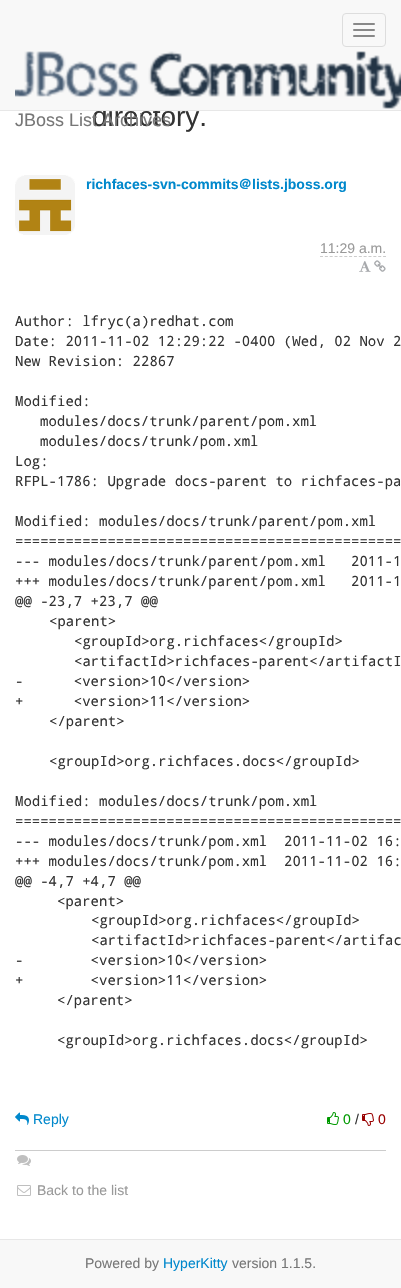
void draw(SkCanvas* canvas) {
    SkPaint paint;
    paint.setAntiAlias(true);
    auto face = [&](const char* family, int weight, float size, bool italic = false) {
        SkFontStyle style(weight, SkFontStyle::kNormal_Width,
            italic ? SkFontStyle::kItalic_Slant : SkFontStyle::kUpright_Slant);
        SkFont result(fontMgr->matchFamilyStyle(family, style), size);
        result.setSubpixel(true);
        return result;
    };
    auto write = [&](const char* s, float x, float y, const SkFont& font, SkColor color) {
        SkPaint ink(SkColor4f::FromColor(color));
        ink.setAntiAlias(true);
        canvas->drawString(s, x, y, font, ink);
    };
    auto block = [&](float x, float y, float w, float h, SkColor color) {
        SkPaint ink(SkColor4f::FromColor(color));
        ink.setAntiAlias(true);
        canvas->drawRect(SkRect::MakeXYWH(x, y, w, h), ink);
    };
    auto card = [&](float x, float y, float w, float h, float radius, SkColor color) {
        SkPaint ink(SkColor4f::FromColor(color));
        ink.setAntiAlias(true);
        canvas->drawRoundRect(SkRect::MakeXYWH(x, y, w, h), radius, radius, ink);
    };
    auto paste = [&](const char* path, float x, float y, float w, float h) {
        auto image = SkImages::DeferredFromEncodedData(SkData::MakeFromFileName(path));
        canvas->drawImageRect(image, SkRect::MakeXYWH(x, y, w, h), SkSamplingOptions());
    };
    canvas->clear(SK_ColorWHITE);
    auto kFont1 = face("Liberation Sans", 400, 28);
    write("directory.", 92, 126, kFont1, SkColorSetRGB(51, 51, 51));
    paste("pic1.png", 15, 175, 60, 60);
    auto kFont2 = face("Liberation Sans", 700, 14);
    write("richfaces-svn-commits", 86, 189, kFont2, SkColorSetRGB(0, 136, 204));
    auto kFont3 = face("WenQuanYi Zen Hei", 700, 14);
    write("＠", 238, 189, kFont3, SkColorSetRGB(0, 136, 204));
    write("lists.jboss.org", 252, 189, kFont2, SkColorSetRGB(0, 136, 204));
    auto kFont4 = face("Liberation Sans", 400, 14);
    write("11:29 a.m.", 320, 253, kFont4, SkColorSetRGB(153, 153, 153));
    paint.setStyle(SkPaint::kStroke_Style);
    paint.setStrokeWidth(1);
    paint.setColor(SkColorSetRGB(204, 204, 204));
    paint.setPathEffect(SkDashPathEffect::Make({{3, 1.85f}}, 0));
    canvas->drawPath(SkPathBuilder().moveTo(320, 256.5f).lineTo(386, 256.5f).detach(), paint);
    paint.setPathEffect(nullptr);
    paste("pic2.png", 359, 261, 12, 11);
    paste("pic3.png", 374, 260, 12, 12);
    auto kFont5 = face("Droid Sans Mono", 400, 14);
    write("Author: lfryc(a)redhat.com", 15, 326, kFont5, SkColorSetRGB(51, 51, 51));
    write("Date: 2011-11-02 12:29:22 -0400 (Wed, 02 Nov 2", 15, 346, kFont5, SkColorSetRGB(51, 51, 51));
    write("New Revision: 22867", 15, 366, kFont5, SkColorSetRGB(51, 51, 51));
    write("Modified:", 15, 406, kFont5, SkColorSetRGB(51, 51, 51));
    write("modules/docs/trunk/parent/pom.xml", 40, 426, kFont5, SkColorSetRGB(51, 51, 51));
    write("modules/docs/trunk/pom.xml", 40, 446, kFont5, SkColorSetRGB(51, 51, 51));
    write("Log:", 15, 466, kFont5, SkColorSetRGB(51, 51, 51));
    write("RFPL-1786: Upgrade docs-parent to richfaces-pa", 15, 486, kFont5, SkColorSetRGB(51, 51, 51));
    write("Modified: modules/docs/trunk/parent/pom.xml", 15, 526, kFont5, SkColorSetRGB(51, 51, 51));
    write("==============================================", 15, 546, kFont5, SkColorSetRGB(51, 51, 51));
    write("--- modules/docs/trunk/parent/pom.xml", 15, 566, kFont5, SkColorSetRGB(51, 51, 51));
    write("2011-1", 351, 566, kFont5, SkColorSetRGB(51, 51, 51));
    write("+++ modules/docs/trunk/parent/pom.xml", 15, 586, kFont5, SkColorSetRGB(51, 51, 51));
    write("2011-1", 351, 586, kFont5, SkColorSetRGB(51, 51, 51));
    write("@@ -23,7 +23,7 @@", 15, 606, kFont5, SkColorSetRGB(51, 51, 51));
    write("<parent>", 49, 626, kFont5, SkColorSetRGB(51, 51, 51));
    write("<groupId>org.richfaces</groupId>", 74, 646, kFont5, SkColorSetRGB(51, 51, 51));
    write("<artifactId>richfaces-parent</artifactI", 74, 666, kFont5, SkColorSetRGB(51, 51, 51));
    write("-      <version>10</version>", 15, 686, kFont5, SkColorSetRGB(51, 51, 51));
    write("+      <version>11</version>", 15, 706, kFont5, SkColorSetRGB(51, 51, 51));
    write("</parent>", 49, 726, kFont5, SkColorSetRGB(51, 51, 51));
    write("<groupId>org.richfaces.docs</groupId>", 49, 766, kFont5, SkColorSetRGB(51, 51, 51));
    write("Modified: modules/docs/trunk/pom.xml", 15, 806, kFont5, SkColorSetRGB(51, 51, 51));
    write("==============================================", 15, 826, kFont5, SkColorSetRGB(51, 51, 51));
    write("--- modules/docs/trunk/pom.xml", 15, 846, kFont5, SkColorSetRGB(51, 51, 51));
    write("2011-11-02 16:", 284, 846, kFont5, SkColorSetRGB(51, 51, 51));
    write("+++ modules/docs/trunk/pom.xml", 15, 866, kFont5, SkColorSetRGB(51, 51, 51));
    write("2011-11-02 16:", 284, 866, kFont5, SkColorSetRGB(51, 51, 51));
    write("@@ -4,7 +4,7 @@", 15, 886, kFont5, SkColorSetRGB(51, 51, 51));
    write("<parent>", 57, 906, kFont5, SkColorSetRGB(51, 51, 51));
    write("<groupId>org.richfaces</groupId>", 91, 925, kFont5, SkColorSetRGB(51, 51, 51));
    write("<artifactId>richfaces-parent</artifac", 91, 945, kFont5, SkColorSetRGB(51, 51, 51));
    write("-        <version>10</version>", 15, 965, kFont5, SkColorSetRGB(51, 51, 51));
    write("+        <version>11</version>", 15, 985, kFont5, SkColorSetRGB(51, 51, 51));
    write("</parent>", 57, 1005, kFont5, SkColorSetRGB(51, 51, 51));
    write("<groupId>org.richfaces.docs</groupId>", 57, 1045, kFont5, SkColorSetRGB(51, 51, 51));
    block(15, 1150, 371, 1, SkColorSetRGB(204, 204, 204));
    paste("pic4.png", 15, 1112, 14, 13);
    write("Reply", 33, 1124, kFont4, SkColorSetRGB(0, 136, 204));
    paste("pic5.png", 327, 1112, 12, 13);
    write("0", 343, 1124, kFont4, SkColorSetRGB(0, 153, 0));
    write("/", 355, 1124, kFont4, SkColorSetRGB(51, 51, 51));
    paste("pic6.png", 362, 1113, 12, 13);
    write("0", 378, 1124, kFont4, SkColorSetRGB(153, 0, 0));
    paste("pic7.png", 17, 1155, 14, 11);
    paste("pic8.png", 17, 1185, 14, 11);
    write("Back to the list", 37, 1195, kFont4, SkColorSetRGB(153, 153, 153));
    block(0, 0, 401, 110, SkColorSetRGB(248, 248, 248));
    block(0, 110, 401, 1, SkColorSetRGB(231, 231, 231));
    paint.setColor(SkColorSetRGB(221, 221, 221));
    canvas->drawRoundRect(SkRect::MakeXYWH(342.5f, 13.5f, 43, 33), 3.5f, 3.5f, paint);
    card(353, 23, 22, 2, 1, SkColorSetRGB(136, 136, 136));
    card(353, 29, 22, 2, 1, SkColorSetRGB(136, 136, 136));
    card(353, 35, 22, 2, 1, SkColorSetRGB(136, 136, 136));
    paste("pic9.png", 15, 51, 386, 58);
    auto kFont6 = face("Liberation Sans", 400, 18);
    write("JBoss List Archives", 15, 126, kFont6, SkColorSetRGB(119, 119, 119));
    block(0, 1240, 401, 48, SkColorSetRGB(248, 248, 248));
    block(0, 1239, 401, 1, SkColorSetRGB(231, 231, 231));
    write("Powered by", 85, 1268, kFont4, SkColorSetRGB(119, 119, 119));
    write("HyperKitty", 163, 1268, kFont4, SkColorSetRGB(0, 136, 204));
    write("version 1.1.5.", 232, 1268, kFont4, SkColorSetRGB(119, 119, 119));
}
